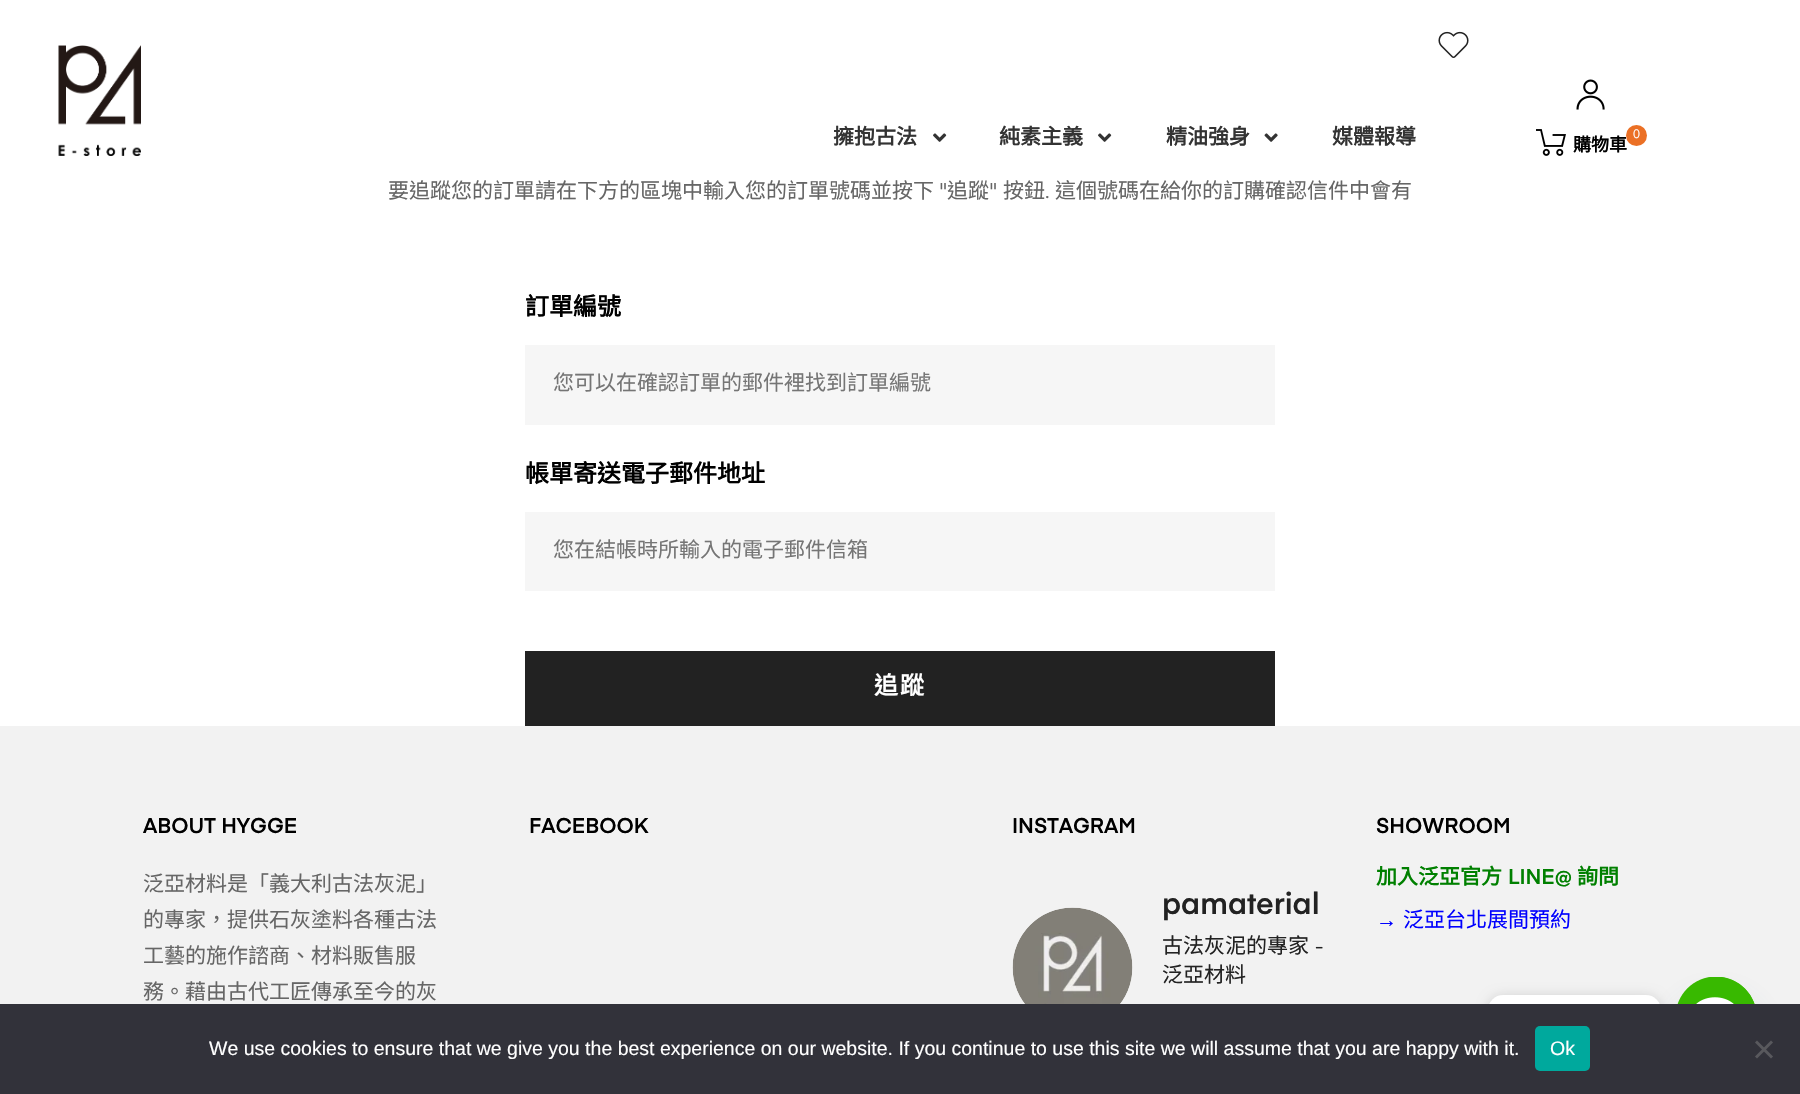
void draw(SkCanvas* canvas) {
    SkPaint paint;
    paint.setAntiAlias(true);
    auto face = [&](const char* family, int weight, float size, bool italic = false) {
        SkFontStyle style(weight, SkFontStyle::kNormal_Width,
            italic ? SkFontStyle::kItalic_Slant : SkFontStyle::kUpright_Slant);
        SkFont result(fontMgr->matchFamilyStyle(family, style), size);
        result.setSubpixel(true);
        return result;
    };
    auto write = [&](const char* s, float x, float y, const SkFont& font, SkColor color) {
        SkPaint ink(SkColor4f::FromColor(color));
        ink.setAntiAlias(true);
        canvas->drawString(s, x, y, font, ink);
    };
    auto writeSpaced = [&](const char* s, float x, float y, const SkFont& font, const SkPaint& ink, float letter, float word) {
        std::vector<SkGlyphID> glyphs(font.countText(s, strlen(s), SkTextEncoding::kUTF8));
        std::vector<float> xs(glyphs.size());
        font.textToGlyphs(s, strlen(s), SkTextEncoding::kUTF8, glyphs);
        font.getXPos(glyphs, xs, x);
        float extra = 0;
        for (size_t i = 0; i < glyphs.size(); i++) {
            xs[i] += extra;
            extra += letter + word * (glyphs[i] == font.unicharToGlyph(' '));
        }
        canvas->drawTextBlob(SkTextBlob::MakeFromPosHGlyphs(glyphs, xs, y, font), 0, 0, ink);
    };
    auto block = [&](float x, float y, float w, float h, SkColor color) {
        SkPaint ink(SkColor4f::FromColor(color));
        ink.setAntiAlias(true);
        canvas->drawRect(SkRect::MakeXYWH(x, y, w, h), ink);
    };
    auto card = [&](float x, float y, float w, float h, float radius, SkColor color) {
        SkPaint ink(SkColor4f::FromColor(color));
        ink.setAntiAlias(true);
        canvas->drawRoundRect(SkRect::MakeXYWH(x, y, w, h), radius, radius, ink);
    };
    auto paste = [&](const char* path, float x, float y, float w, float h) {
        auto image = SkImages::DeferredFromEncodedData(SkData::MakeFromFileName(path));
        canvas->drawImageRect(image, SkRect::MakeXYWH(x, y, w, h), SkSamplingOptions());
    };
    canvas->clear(SK_ColorWHITE);
    paste("pic1.png", 58, 45, 83, 111);
    auto kFont1 = face("Noto Sans CJK TC", 700, 21);
    write("擁抱古法", 833, 144, kFont1, SkColorSetRGB(51, 51, 51));
    paste("pic2.png", 933, 133, 14, 9);
    write("純素主義", 999, 144, kFont1, SkColorSetRGB(51, 51, 51));
    paste("pic2.png", 1098, 133, 14, 9);
    write("精油強身", 1166, 144, kFont1, SkColorSetRGB(51, 51, 51));
    paste("pic3.png", 1264, 133, 14, 9);
    write("媒體報導", 1332, 144, kFont1, SkColorSetRGB(51, 51, 51));
    paste("pic4.png", 1438, 31, 31, 27);
    paste("pic5.png", 1576, 79, 29, 31);
    paste("pic6.png", 1536, 129, 30, 27);
    auto kFont2 = face("Noto Sans CJK TC", 700, 18);
    write("購物車", 1573, 151, kFont2, SK_ColorBLACK);
    paint.setColor(SkColorSetRGB(235, 112, 37));
    canvas->drawCircle(1636.5f, 135.5f, 10.5f, paint);
    auto kFont3 = face("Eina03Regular", 400, 12);
    write("0", 1633, 138, kFont3, SK_ColorWHITE);
    auto kFont4 = face("Noto Sans CJK TC", 400, 21);
    write("要追蹤您的訂單請在下方的區塊中輸入您的訂單號碼並按下", 388, 198, kFont4, SkColorSetRGB(102, 102, 102));
    auto kFont5 = face("Eina03Regular", 400, 21);
    write("\"", 939, 198, kFont5, SkColorSetRGB(102, 102, 102));
    write("追蹤", 947, 198, kFont4, SkColorSetRGB(102, 102, 102));
    write("\"", 989, 198, kFont5, SkColorSetRGB(102, 102, 102));
    write("按鈕", 1003, 198, kFont4, SkColorSetRGB(102, 102, 102));
    write("這個號碼在給你的訂購確認信件中會有", 1055, 198, kFont4, SkColorSetRGB(102, 102, 102));
    write(".", 1045, 198, kFont5, SkColorSetRGB(102, 102, 102));
    auto kFont6 = face("Noto Sans CJK TC", 700, 24);
    write("訂單編號", 525, 315, kFont6, SK_ColorBLACK);
    block(525, 345, 750, 80, SkColorSetRGB(246, 246, 246));
    write("您可以在確認訂單的郵件裡找到訂單編號", 553, 390, kFont4, SkColorSetRGB(117, 117, 117));
    write("帳單寄送電子郵件地址", 525, 482, kFont6, SK_ColorBLACK);
    block(525, 512, 750, 79, SkColorSetRGB(246, 246, 246));
    write("您在結帳時所輸入的電子郵件信箱", 553, 557, kFont4, SkColorSetRGB(117, 117, 117));
    block(525, 651, 750, 75, SkColorSetRGB(34, 34, 34));
    paint.setColor(SK_ColorWHITE);
    writeSpaced("追蹤", 874, 694, kFont6, paint, 2, 0);
    block(0, 726, 1800, 278, SkColorSetRGB(242, 242, 242));
    auto kFont7 = face("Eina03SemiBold", 600, 21);
    write("ABOUT HYGGE", 143, 833, kFont7, SK_ColorBLACK);
    write("泛亞材料是「義大利古法灰泥」", 143, 891, kFont4, SkColorSetRGB(102, 102, 102));
    write("的專家，提供石灰塗料各種古法", 143, 927, kFont4, SkColorSetRGB(102, 102, 102));
    write("工藝的施作諮商、材料販售服", 143, 963, kFont4, SkColorSetRGB(102, 102, 102));
    write("務。藉由古代工匠傳承至今的灰", 143, 999, kFont4, SkColorSetRGB(102, 102, 102));
    write("FACEBOOK", 529, 833, kFont7, SK_ColorBLACK);
    write("INSTAGRAM", 1012, 833, kFont7, SK_ColorBLACK);
    paste("pic7.png", 1012, 907, 121, 97);
    auto kFont8 = face("Eina03SemiBold", 600, 30);
    write("pamaterial", 1162, 914, kFont8, SkColorSetRGB(34, 34, 34));
    write("古法灰泥的專家", 1162, 953, kFont4, SkColorSetRGB(34, 34, 34));
    write("-", 1315, 953, kFont5, SkColorSetRGB(34, 34, 34));
    write("泛亞材料", 1162, 982, kFont4, SkColorSetRGB(34, 34, 34));
    write("SHOWROOM", 1376, 833, kFont7, SK_ColorBLACK);
    write("加入泛亞官方", 1376, 884, kFont1, SkColorSetRGB(0, 128, 0));
    write("LINE@", 1508, 884, kFont7, SkColorSetRGB(0, 128, 0));
    write("詢問", 1577, 884, kFont1, SkColorSetRGB(0, 128, 0));
    auto kFont9 = face("Liberation Sans", 400, 21);
    write("→", 1376, 927, kFont9, SkColorSetRGB(0, 0, 255));
    write("泛亞台北展間預約", 1403, 927, kFont4, SkColorSetRGB(0, 0, 255));
    paint.setColor(SkColorSetARGB(41, 73, 104, 126));
    paint.setMaskFilter(SkMaskFilter::MakeBlur(kNormal_SkBlurStyle, 18));
    canvas->drawRoundRect(SkRect::MakeXYWH(1676, 1001, 81, 81), 40.5f, 40.5f, paint);
    paint.setMaskFilter(nullptr);
    paint.setColor(SkColorSetRGB(56, 185, 0));
    canvas->drawCircle(1716.5f, 1017.5f, 40.5f, paint);
    paste("pic8.png", 1677, 977, 78, 27);
    paint.setColor(SkColorSetARGB(38, 0, 0, 0));
    paint.setMaskFilter(SkMaskFilter::MakeBlur(kNormal_SkBlurStyle, 6));
    canvas->drawRoundRect(SkRect::MakeXYWH(1488, 996, 173, 47), 15, 15, paint);
    paint.setMaskFilter(nullptr);
    card(1488, 995, 173, 46, 15, SK_ColorWHITE);
    block(0, 1004, 1800, 90, SkColorSetRGB(50, 50, 58));
    auto kFont10 = face("Liberation Sans", 400, 19.5f);
    write("We use cookies to ensure that we give you the best experience on our website. If you continue to use this site we will assume that you are happy with it.", 209, 1055, kFont10, SK_ColorWHITE);
    card(1535, 1026, 55, 45, 5, SkColorSetRGB(0, 169, 157));
    write("Ok", 1550, 1055, kFont10, SK_ColorWHITE);
    paint.setColor(SkColorSetRGB(89, 89, 93));
    canvas->drawPath(SkPathBuilder().moveTo(1771, 1040.5f).lineTo(1773, 1042.5f).lineTo(1757, 1058.5f).lineTo(1755, 1056.5f).close().detach(), paint);
    canvas->drawPath(SkPathBuilder().moveTo(1755, 1042.5f).lineTo(1757, 1040.5f).lineTo(1773, 1056.5f).lineTo(1771, 1058.5f).close().detach(), paint);
}
